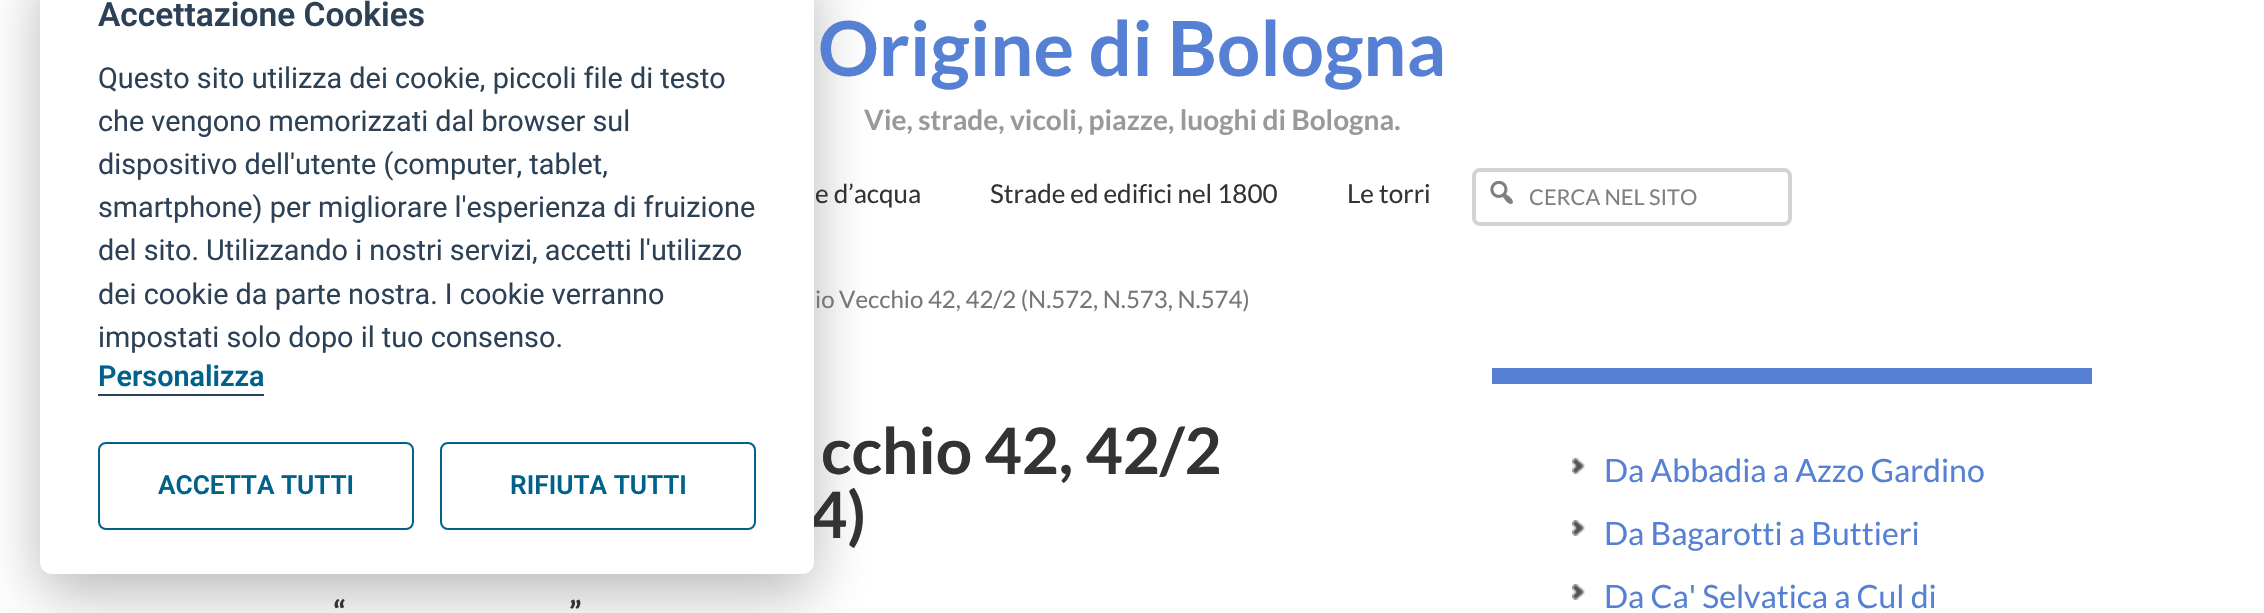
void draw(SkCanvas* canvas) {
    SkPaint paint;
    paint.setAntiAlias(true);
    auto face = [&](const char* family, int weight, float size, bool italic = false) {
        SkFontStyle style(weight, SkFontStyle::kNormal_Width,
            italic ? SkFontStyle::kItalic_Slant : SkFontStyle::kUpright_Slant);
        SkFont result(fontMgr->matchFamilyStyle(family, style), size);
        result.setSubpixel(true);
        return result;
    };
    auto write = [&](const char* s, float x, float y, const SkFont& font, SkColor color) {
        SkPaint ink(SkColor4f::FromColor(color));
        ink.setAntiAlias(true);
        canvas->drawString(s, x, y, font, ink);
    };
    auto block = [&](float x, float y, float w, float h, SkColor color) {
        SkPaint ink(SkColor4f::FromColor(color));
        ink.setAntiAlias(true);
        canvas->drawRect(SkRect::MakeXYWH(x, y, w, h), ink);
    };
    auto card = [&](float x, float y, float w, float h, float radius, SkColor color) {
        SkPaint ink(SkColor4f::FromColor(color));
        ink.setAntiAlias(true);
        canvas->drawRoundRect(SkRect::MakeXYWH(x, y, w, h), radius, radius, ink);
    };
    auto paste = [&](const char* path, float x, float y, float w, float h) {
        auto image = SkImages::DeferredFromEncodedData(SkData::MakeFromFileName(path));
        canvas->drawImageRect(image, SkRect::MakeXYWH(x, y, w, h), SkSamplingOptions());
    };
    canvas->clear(SK_ColorWHITE);
    paint.setColor(SkColorSetARGB(71, 2, 2, 3));
    paint.setMaskFilter(SkMaskFilter::MakeBlur(kNormal_SkBlurStyle, 30));
    canvas->drawRoundRect(SkRect::MakeXYWH(40, -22, 774, 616), 12, 12, paint);
    paint.setMaskFilter(nullptr);
    auto kFont1 = face("Lato", 700, 64);
    write("4)", 810, 538, kFont1, SkColorSetRGB(51, 51, 51));
    card(40, -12, 774, 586, 12, SK_ColorWHITE);
    auto kFont2 = face("Roboto", 600, 33.5f);
    write("Accettazione Cookies", 98, 26, kFont2, SkColorSetRGB(45, 65, 86));
    auto kFont3 = face("Roboto", 400, 28.8f);
    write("Questo sito utilizza dei cookie, piccoli file di testo", 98, 88, kFont3, SkColorSetRGB(45, 65, 86));
    write("che vengono memorizzati dal browser sul", 98, 131, kFont3, SkColorSetRGB(45, 65, 86));
    write("dispositivo dell'utente (computer, tablet,", 98, 174, kFont3, SkColorSetRGB(45, 65, 86));
    write("smartphone) per migliorare l'esperienza di fruizione", 98, 217, kFont3, SkColorSetRGB(45, 65, 86));
    write("del sito. Utilizzando i nostri servizi, accetti l'utilizzo", 98, 260, kFont3, SkColorSetRGB(45, 65, 86));
    write("dei cookie da parte nostra. I cookie verranno", 98, 304, kFont3, SkColorSetRGB(45, 65, 86));
    write("impostati solo dopo il tuo consenso.", 98, 347, kFont3, SkColorSetRGB(45, 65, 86));
    block(98, 394, 166, 2, SkColorSetRGB(45, 65, 86));
    auto kFont4 = face("Roboto", 600, 28.8f);
    write("Personalizza", 98, 386, kFont4, SkColorSetRGB(0, 97, 139));
    paint.setStyle(SkPaint::kStroke_Style);
    paint.setStrokeWidth(2);
    paint.setColor(SkColorSetRGB(0, 97, 139));
    canvas->drawRoundRect(SkRect::MakeXYWH(99, 443, 314, 86), 7, 7, paint);
    auto kFont5 = face("Roboto", 600, 26.25f);
    write("ACCETTA TUTTI", 158, 494, kFont5, SkColorSetRGB(0, 97, 139));
    canvas->drawRoundRect(SkRect::MakeXYWH(441, 443, 314, 86), 7, 7, paint);
    write("RIFIUTA TUTTI", 510, 494, kFont5, SkColorSetRGB(0, 97, 139));
    auto kFont6 = face("Lato", 700, 76);
    write("Origine di Bologna", 818, 76, kFont6, SkColorSetRGB(85, 128, 211));
    auto kFont7 = face("Lato", 700, 28);
    write("Vie, strade, vicoli, piazze, luoghi di Bologna.", 864, 130, kFont7, SkColorSetRGB(153, 153, 153));
    auto kFont8 = face("Lato", 400, 26);
    write("e d’acqua", 815, 203, kFont8, SkColorSetRGB(51, 51, 51));
    write("Strade ed edifici nel 1800", 990, 203, kFont8, SkColorSetRGB(51, 51, 51));
    write("Le torri", 1347, 203, kFont8, SkColorSetRGB(51, 51, 51));
    paint.setStrokeWidth(4);
    paint.setColor(SkColorSetRGB(211, 211, 211));
    canvas->drawRoundRect(SkRect::MakeXYWH(1474, 170, 316, 54), 6, 6, paint);
    paste("pic1.png", 1490, 180, 23, 24);
    auto kFont9 = face("Lato", 400, 21.75f);
    write("CERCA NEL SITO", 1529, 205, kFont9, SkColorSetRGB(128, 128, 128));
    auto kFont10 = face("Lato", 400, 24);
    write("io Vecchio 42, 42/2 (N.572, N.573, N.574)", 815, 308, kFont10, SkColorSetRGB(119, 119, 119));
    write("cchio 42, 42/2", 821, 474, kFont1, SkColorSetRGB(51, 51, 51));
    auto kFont11 = face("Lato", 700, 32);
    write("“", 333, 624, kFont11, SkColorSetRGB(51, 51, 51));
    write("”", 569, 624, kFont11, SkColorSetRGB(51, 51, 51));
    block(1492, 368, 600, 16, SkColorSetRGB(85, 128, 211));
    paste("pic2.png", 1572, 458, 13, 16);
    auto kFont12 = face("Lato", 400, 32);
    write("Da Abbadia a Azzo Gardino", 1604, 482, kFont12, SkColorSetRGB(85, 128, 211));
    paste("pic2.png", 1572, 520, 13, 16);
    write("Da Bagarotti a Buttieri", 1604, 545, kFont12, SkColorSetRGB(85, 128, 211));
    paste("pic2.png", 1572, 584, 13, 16);
    write("Da Ca' Selvatica a Cul di", 1604, 608, kFont12, SkColorSetRGB(85, 128, 211));
}
